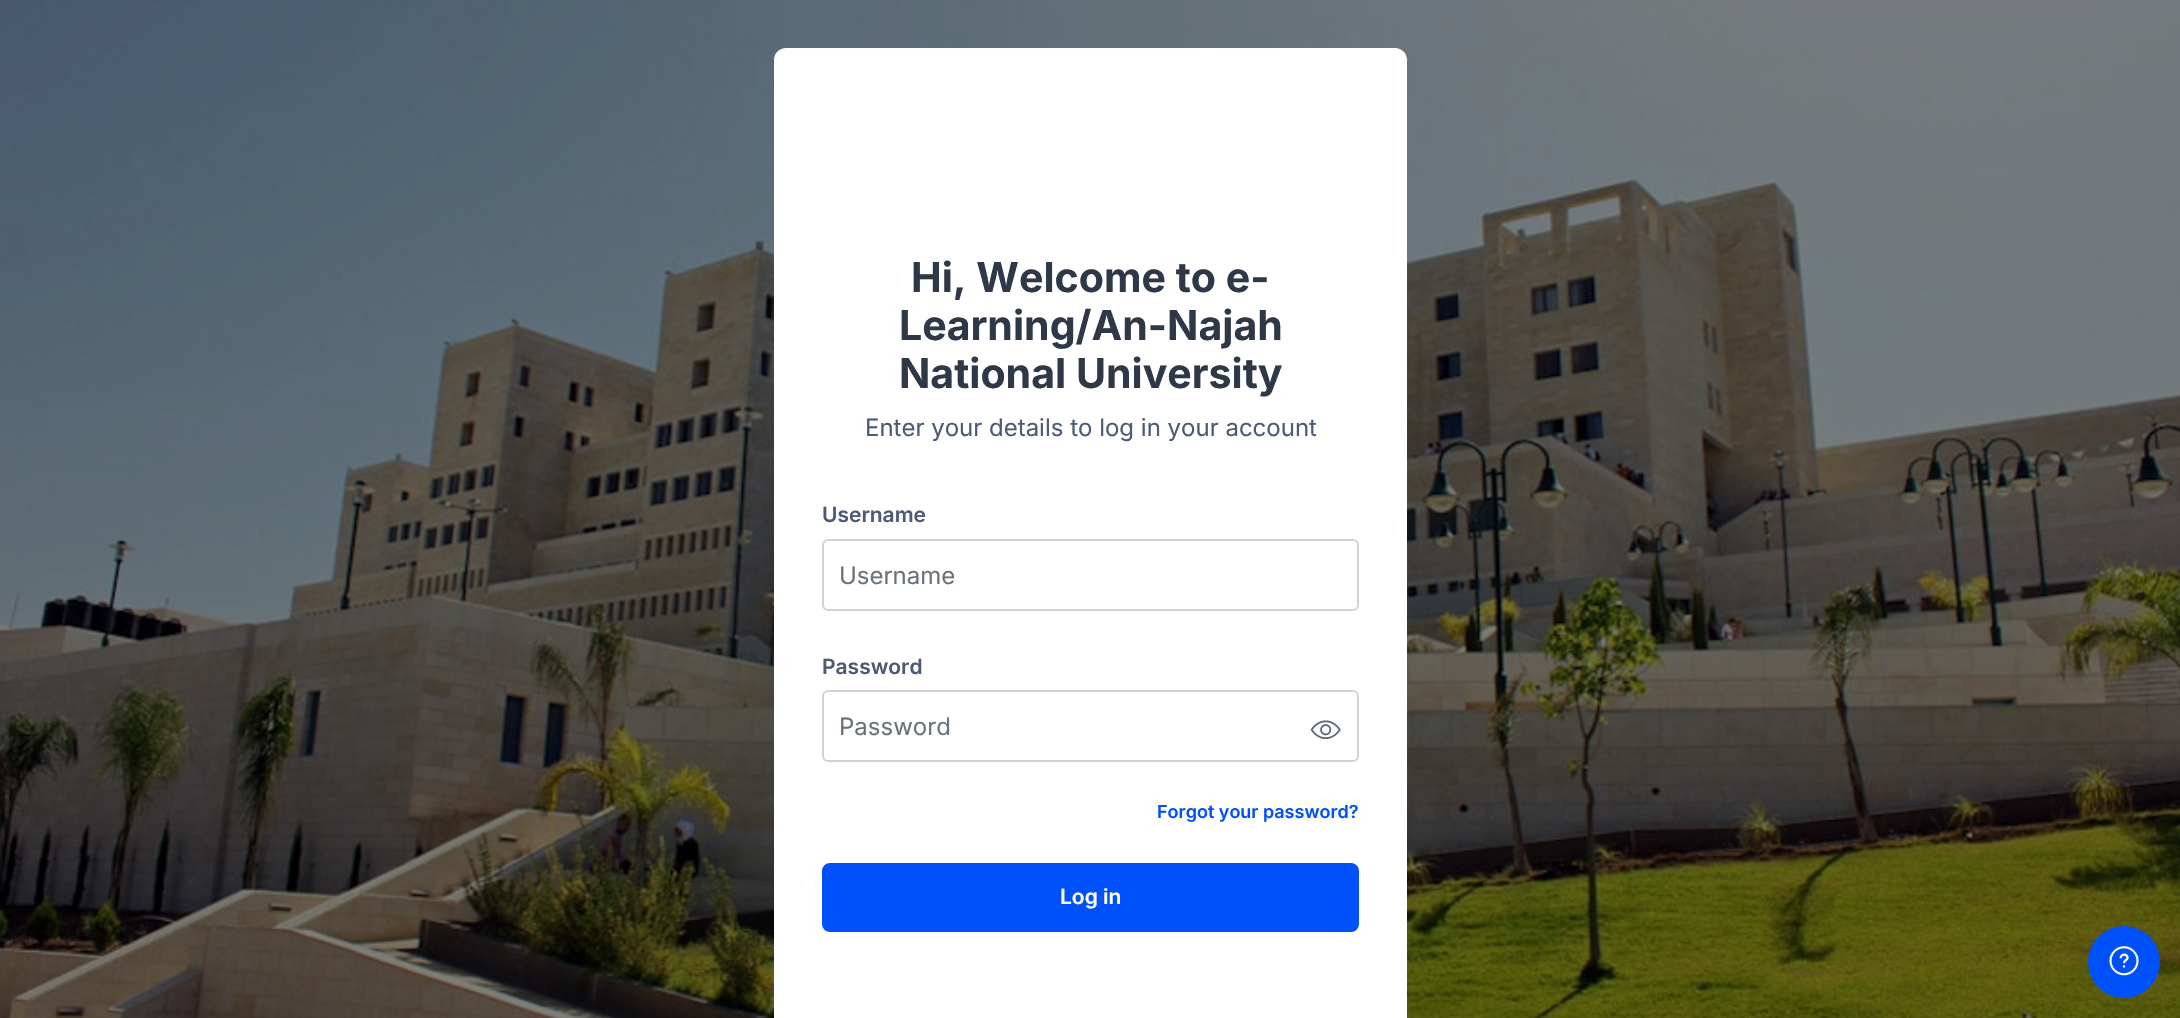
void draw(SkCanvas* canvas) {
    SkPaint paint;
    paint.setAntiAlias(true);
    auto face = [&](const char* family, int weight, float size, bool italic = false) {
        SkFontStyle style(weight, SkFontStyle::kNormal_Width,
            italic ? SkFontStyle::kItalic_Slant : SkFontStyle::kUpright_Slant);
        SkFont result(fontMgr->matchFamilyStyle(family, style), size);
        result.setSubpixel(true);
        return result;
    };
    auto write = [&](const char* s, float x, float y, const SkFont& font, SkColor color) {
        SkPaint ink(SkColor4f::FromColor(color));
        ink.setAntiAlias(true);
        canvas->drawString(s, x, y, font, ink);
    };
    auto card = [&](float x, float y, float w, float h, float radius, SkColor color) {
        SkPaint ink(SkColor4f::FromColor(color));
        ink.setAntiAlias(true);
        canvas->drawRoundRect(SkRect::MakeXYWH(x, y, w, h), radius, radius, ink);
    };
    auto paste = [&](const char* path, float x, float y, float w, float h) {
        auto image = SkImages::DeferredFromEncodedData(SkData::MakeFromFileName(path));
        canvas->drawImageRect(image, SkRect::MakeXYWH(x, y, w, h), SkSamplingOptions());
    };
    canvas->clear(SK_ColorWHITE);
    paste("pic1.png", 0, 0, 2180, 1018);
    card(774, 48, 633, 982, 12, SK_ColorWHITE);
    auto kFont1 = face("Inter", 700, 41.1f);
    write("Hi, Welcome to e-", 911, 292, kFont1, SkColorSetRGB(47, 56, 71));
    write("Learning/An-Najah", 899, 340, kFont1, SkColorSetRGB(47, 56, 71));
    write("National University", 899, 388, kFont1, SkColorSetRGB(47, 56, 71));
    auto kFont2 = face("Inter", 400, 24);
    write("Enter your details to log in your account", 865, 436, kFont2, SkColorSetRGB(76, 90, 115));
    auto kFont3 = face("Inter", 600, 21);
    write("Username", 822, 522, kFont3, SkColorSetRGB(76, 90, 115));
    paint.setStyle(SkPaint::kStroke_Style);
    paint.setStrokeWidth(2);
    paint.setColor(SkColorSetRGB(206, 212, 218));
    canvas->drawRoundRect(SkRect::MakeXYWH(823, 540, 535, 70), 5, 5, paint);
    write("Username", 839, 584, kFont2, SkColorSetRGB(106, 115, 123));
    write("Password", 822, 674, kFont3, SkColorSetRGB(76, 90, 115));
    canvas->drawRoundRect(SkRect::MakeXYWH(823, 691, 535, 70), 5, 5, paint);
    write("Password", 839, 735, kFont2, SkColorSetRGB(106, 115, 123));
    paste("pic2.png", 1310, 720, 31, 20);
    auto kFont4 = face("Inter", 600, 18);
    write("Forgot your password?", 1157, 818, kFont4, SkColorSetRGB(0, 81, 249));
    paint.setStyle(SkPaint::kFill_Style);
    paint.setColor(SkColorSetRGB(0, 81, 249));
    canvas->drawRoundRect(SkRect::MakeXYWH(823, 864, 535, 67), 7, 7, paint);
    paint.setStyle(SkPaint::kStroke_Style);
    canvas->drawRoundRect(SkRect::MakeXYWH(823, 864, 535, 67), 7, 7, paint);
    write("Log in", 1060, 904, kFont3, SK_ColorWHITE);
    paint.setStyle(SkPaint::kFill_Style);
    canvas->drawCircle(2124, 962, 35, paint);
    paint.setStyle(SkPaint::kStroke_Style);
    canvas->drawCircle(2124, 962, 35, paint);
    paste("pic3.png", 2109, 946, 30, 30);
}
